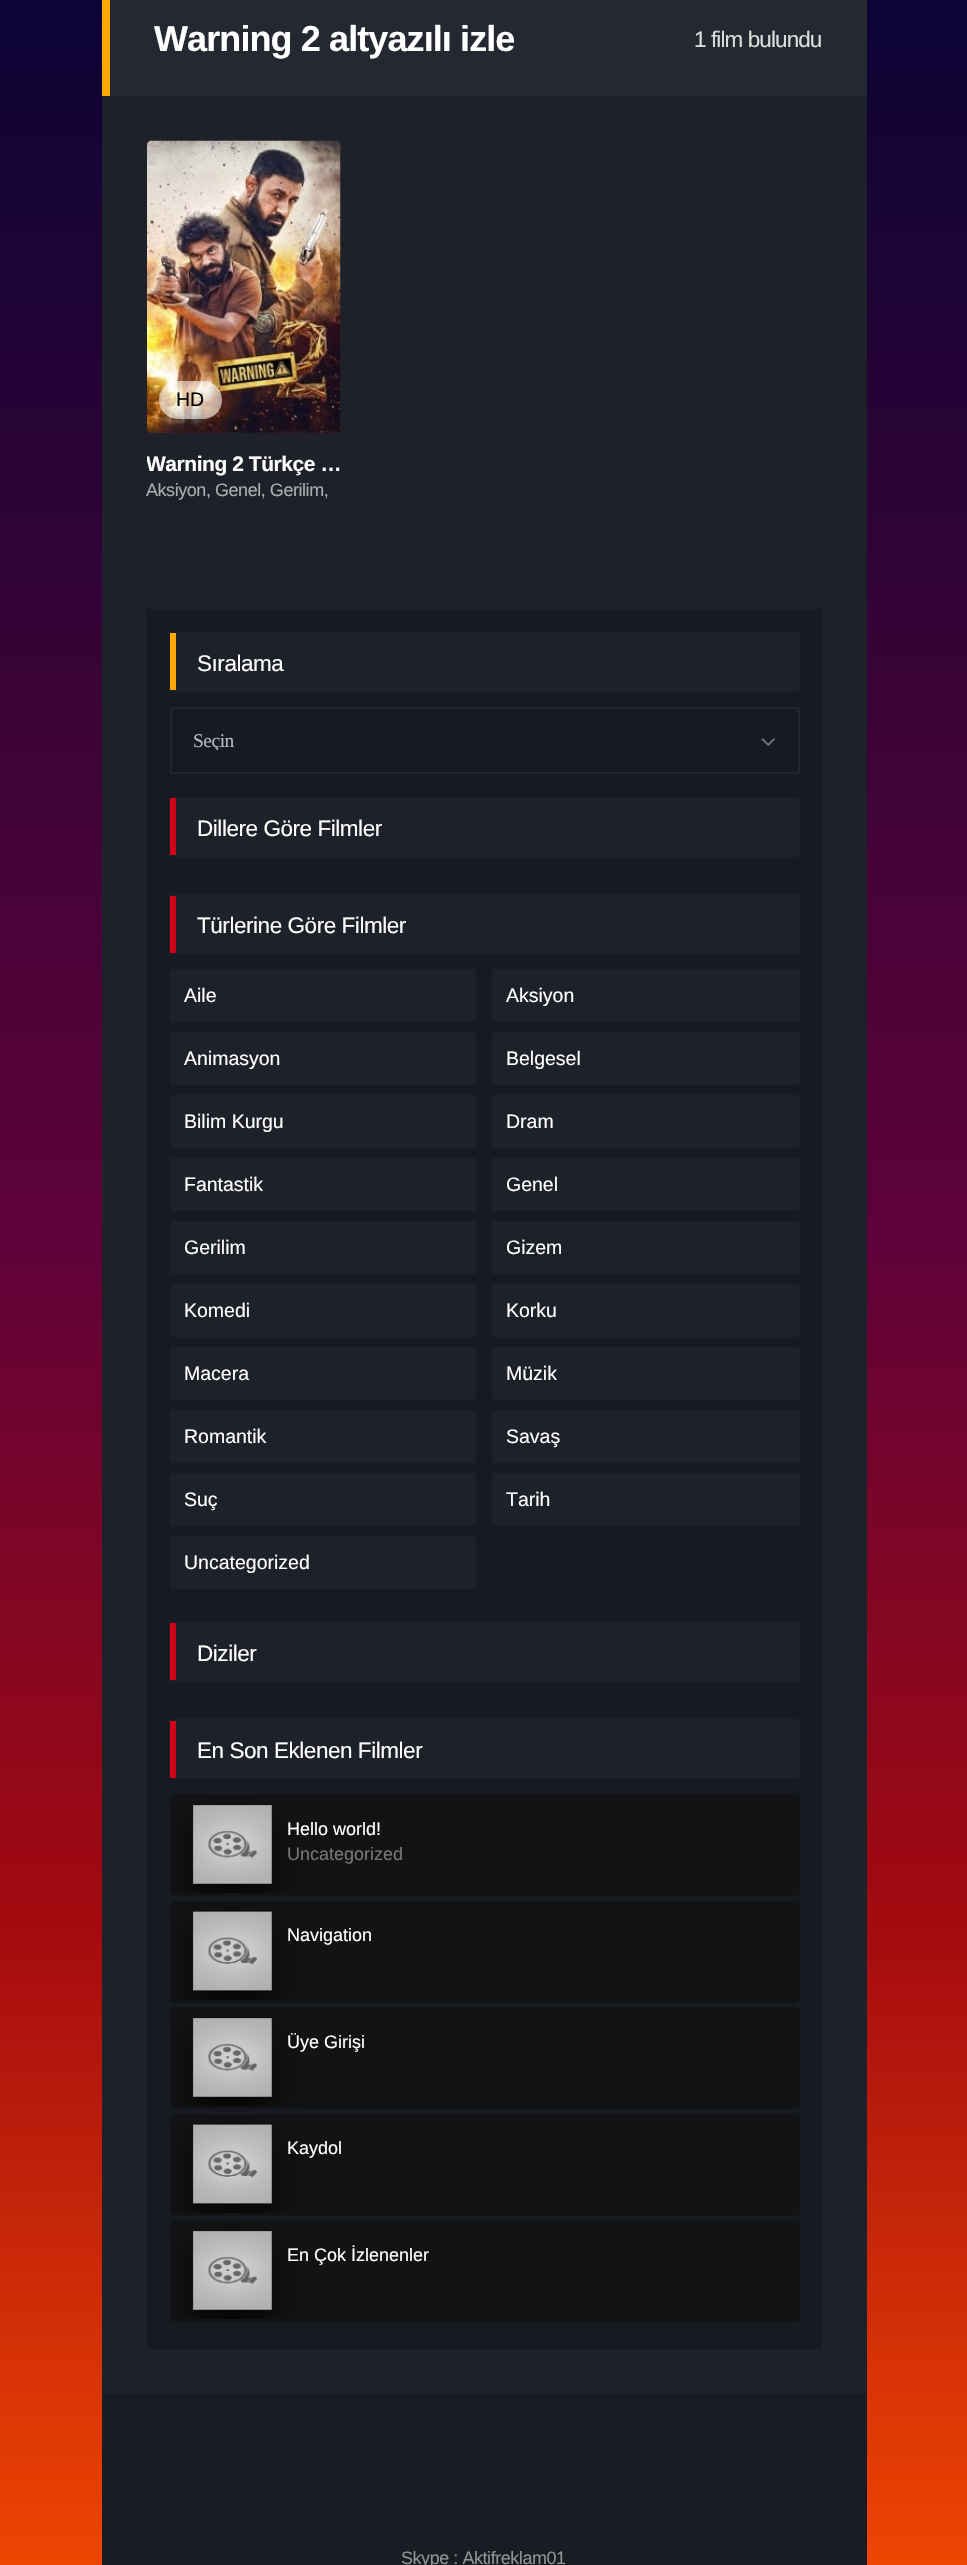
void draw(SkCanvas* canvas) {
    SkPaint paint;
    paint.setAntiAlias(true);
    auto face = [&](const char* family, int weight, float size, bool italic = false) {
        SkFontStyle style(weight, SkFontStyle::kNormal_Width,
            italic ? SkFontStyle::kItalic_Slant : SkFontStyle::kUpright_Slant);
        SkFont result(fontMgr->matchFamilyStyle(family, style), size);
        result.setSubpixel(true);
        return result;
    };
    auto write = [&](const char* s, float x, float y, const SkFont& font, SkColor color) {
        SkPaint ink(SkColor4f::FromColor(color));
        ink.setAntiAlias(true);
        canvas->drawString(s, x, y, font, ink);
    };
    auto writeSpaced = [&](const char* s, float x, float y, const SkFont& font, const SkPaint& ink, float letter, float word) {
        std::vector<SkGlyphID> glyphs(font.countText(s, strlen(s), SkTextEncoding::kUTF8));
        std::vector<float> xs(glyphs.size());
        font.textToGlyphs(s, strlen(s), SkTextEncoding::kUTF8, glyphs);
        font.getXPos(glyphs, xs, x);
        float extra = 0;
        for (size_t i = 0; i < glyphs.size(); i++) {
            xs[i] += extra;
            extra += letter + word * (glyphs[i] == font.unicharToGlyph(' '));
        }
        canvas->drawTextBlob(SkTextBlob::MakeFromPosHGlyphs(glyphs, xs, y, font), 0, 0, ink);
    };
    auto block = [&](float x, float y, float w, float h, SkColor color) {
        SkPaint ink(SkColor4f::FromColor(color));
        ink.setAntiAlias(true);
        canvas->drawRect(SkRect::MakeXYWH(x, y, w, h), ink);
    };
    auto card = [&](float x, float y, float w, float h, float radius, SkColor color) {
        SkPaint ink(SkColor4f::FromColor(color));
        ink.setAntiAlias(true);
        canvas->drawRoundRect(SkRect::MakeXYWH(x, y, w, h), radius, radius, ink);
    };
    auto paste = [&](const char* path, float x, float y, float w, float h) {
        auto image = SkImages::DeferredFromEncodedData(SkData::MakeFromFileName(path));
        canvas->drawImageRect(image, SkRect::MakeXYWH(x, y, w, h), SkSamplingOptions());
    };
    canvas->clear(SK_ColorWHITE);
    {
        const SkColor colors[] = {SkColorSetRGB(11, 4, 53), SkColorSetRGB(96, 2, 57), SkColorSetRGB(163, 10, 15), SkColorSetRGB(238, 69, 2)};
        const float stops[] = {0, 0.49f, 0.75f, 1};
        const SkPoint ends[] = {{484, 0}, {484, 2565}};
        paint.setShader(SkGradientShader::MakeLinear(ends, colors, stops, 4, SkTileMode::kClamp));
        paint.setAlpha(255);
    }
    canvas->drawRect(SkRect::MakeXYWH(0, 0, 967, 2565), paint);
    block(110, 0, 757, 96, SkColorSetRGB(36, 40, 48));
    block(102, 0, 8, 96, SkColorSetRGB(255, 169, 0));
    auto kFont1 = face("Liberation Sans", 700, 36);
    paint.setShader(nullptr);
    paint.setColor(SK_ColorWHITE);
    writeSpaced("Warning 2 altyazılı izle", 154, 51, kFont1, paint, -0.9f, 0);
    auto kFont2 = face("Liberation Sans", 400, 22.5f);
    paint.setColor(SkColorSetRGB(221, 221, 221));
    writeSpaced("1 film bulundu", 694, 47, kFont2, paint, -0.9f, 0);
    block(102, 96, 765, 2298, SkColorSetRGB(30, 33, 41));
    paste("pic1.png", 147, 140, 194, 293);
    card(159, 381, 63, 38, 19, SkColorSetARGB(150, 255, 255, 255));
    auto kFont3 = face("Liberation Sans", 400, 19.5f);
    write("HD", 176, 406, kFont3, SK_ColorBLACK);
    canvas->save();
    canvas->clipRect(SkRect::MakeXYWH(147, 449, 194, 30));
    auto kFont4 = face("Liberation Sans", 700, 21);
    paint.setColor(SK_ColorWHITE);
    writeSpaced("Warning 2 Türkçe …", 146, 471, kFont4, paint, -0.45f, 0);
    canvas->restore();
    auto kFont5 = face("Liberation Sans", 400, 18);
    paint.setColor(SkColorSetRGB(172, 173, 176));
    writeSpaced("Aksiyon, Genel, Gerilim,", 146, 496, kFont5, paint, -0.45f, 0);
    block(147, 609, 675, 1740, SkColorSetRGB(23, 26, 33));
    card(170, 632, 630, 60, 3, SkColorSetRGB(30, 33, 41));
    block(170, 633, 6, 57, SkColorSetRGB(255, 169, 0));
    paint.setColor(SK_ColorWHITE);
    writeSpaced("Sıralama", 197, 671, kFont2, paint, -0.45f, 0);
    paint.setStyle(SkPaint::kStroke_Style);
    paint.setStrokeWidth(2);
    paint.setColor(SkColorSetRGB(33, 37, 47));
    canvas->drawRoundRect(SkRect::MakeXYWH(171, 708, 628, 65), 2, 2, paint);
    canvas->save();
    canvas->clipRect(SkRect::MakeXYWH(194, 731, 582, 19));
    auto kFont6 = face("Liberation Serif", 400, 19.5f);
    paint.setStyle(SkPaint::kFill_Style);
    paint.setColor(SkColorSetRGB(181, 185, 194));
    writeSpaced("Seçin", 193, 747, kFont6, paint, -0.5f, 0);
    canvas->restore();
    paste("pic2.png", 761, 738, 14, 8);
    card(170, 797, 630, 60, 3, SkColorSetRGB(30, 33, 41));
    block(170, 798, 6, 57, SkColorSetRGB(208, 2, 27));
    paint.setColor(SK_ColorWHITE);
    writeSpaced("Dillere Göre Filmler", 197, 836, kFont2, paint, -0.45f, 0);
    card(170, 894, 630, 60, 3, SkColorSetRGB(30, 33, 41));
    block(170, 896, 6, 57, SkColorSetRGB(208, 2, 27));
    writeSpaced("Türlerine Göre Filmler", 197, 933, kFont2, paint, -0.45f, 0);
    card(170, 969, 306, 53, 3, SkColorSetRGB(30, 33, 41));
    write("Aile", 184, 1002, kFont3, SK_ColorWHITE);
    card(492, 969, 308, 53, 3, SkColorSetRGB(30, 33, 41));
    write("Aksiyon", 506, 1002, kFont3, SK_ColorWHITE);
    card(170, 1032, 306, 53, 3, SkColorSetRGB(30, 33, 41));
    write("Animasyon", 184, 1065, kFont3, SK_ColorWHITE);
    card(492, 1032, 308, 53, 3, SkColorSetRGB(30, 33, 41));
    write("Belgesel", 506, 1065, kFont3, SK_ColorWHITE);
    card(170, 1095, 306, 53, 3, SkColorSetRGB(30, 33, 41));
    write("Bilim Kurgu", 184, 1128, kFont3, SK_ColorWHITE);
    card(492, 1095, 308, 53, 3, SkColorSetRGB(30, 33, 41));
    write("Dram", 506, 1128, kFont3, SK_ColorWHITE);
    card(170, 1158, 306, 53, 3, SkColorSetRGB(30, 33, 41));
    write("Fantastik", 184, 1191, kFont3, SK_ColorWHITE);
    card(492, 1158, 308, 53, 3, SkColorSetRGB(30, 33, 41));
    write("Genel", 506, 1191, kFont3, SK_ColorWHITE);
    card(170, 1221, 306, 53, 3, SkColorSetRGB(30, 33, 41));
    write("Gerilim", 184, 1254, kFont3, SK_ColorWHITE);
    card(492, 1221, 308, 53, 3, SkColorSetRGB(30, 33, 41));
    write("Gizem", 506, 1254, kFont3, SK_ColorWHITE);
    card(170, 1284, 306, 53, 3, SkColorSetRGB(30, 33, 41));
    write("Komedi", 184, 1317, kFont3, SK_ColorWHITE);
    card(492, 1284, 308, 53, 3, SkColorSetRGB(30, 33, 41));
    write("Korku", 506, 1317, kFont3, SK_ColorWHITE);
    card(170, 1347, 306, 53, 3, SkColorSetRGB(30, 33, 41));
    write("Macera", 184, 1380, kFont3, SK_ColorWHITE);
    card(492, 1347, 308, 53, 3, SkColorSetRGB(30, 33, 41));
    write("Müzik", 506, 1380, kFont3, SK_ColorWHITE);
    card(170, 1410, 306, 53, 3, SkColorSetRGB(30, 33, 41));
    write("Romantik", 184, 1443, kFont3, SK_ColorWHITE);
    card(492, 1410, 308, 53, 3, SkColorSetRGB(30, 33, 41));
    write("Savaş", 506, 1443, kFont3, SK_ColorWHITE);
    card(170, 1473, 306, 53, 3, SkColorSetRGB(30, 33, 41));
    write("Suç", 184, 1506, kFont3, SK_ColorWHITE);
    card(492, 1473, 308, 53, 3, SkColorSetRGB(30, 33, 41));
    write("Tarih", 506, 1506, kFont3, SK_ColorWHITE);
    card(170, 1536, 306, 53, 3, SkColorSetRGB(30, 33, 41));
    write("Uncategorized", 184, 1569, kFont3, SK_ColorWHITE);
    card(170, 1622, 630, 60, 3, SkColorSetRGB(30, 33, 41));
    block(170, 1623, 6, 57, SkColorSetRGB(208, 2, 27));
    writeSpaced("Diziler", 197, 1661, kFont2, paint, -0.45f, 0);
    card(170, 1719, 630, 60, 3, SkColorSetRGB(30, 33, 41));
    block(170, 1721, 6, 57, SkColorSetRGB(208, 2, 27));
    writeSpaced("En Son Eklenen Filmler", 197, 1758, kFont2, paint, -0.45f, 0);
    card(170, 1794, 630, 102, 5, SkColorSetRGB(18, 19, 20));
    canvas->save();
    canvas->clipPath(SkPathBuilder().moveTo(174.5f, 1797).lineTo(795.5f, 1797).cubicTo(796.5f, 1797, 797, 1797.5f, 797, 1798.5f).lineTo(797, 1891.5f).cubicTo(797, 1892.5f, 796.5f, 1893, 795.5f, 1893).lineTo(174.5f, 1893).cubicTo(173.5f, 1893, 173, 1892.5f, 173, 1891.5f).lineTo(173, 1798.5f).cubicTo(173, 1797.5f, 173.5f, 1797, 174.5f, 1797).close().detach(), true);
    canvas->clipPath(SkPathBuilder(SkPathFillType::kEvenOdd).moveTo(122, 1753).lineTo(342, 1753).lineTo(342, 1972).lineTo(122, 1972).close().moveTo(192, 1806).lineTo(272, 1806).lineTo(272, 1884).lineTo(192, 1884).close().detach(), true);
    paint.setColor(SkColorSetRGB(1, 1, 1));
    paint.setMaskFilter(SkMaskFilter::MakeBlur(kNormal_SkBlurStyle, 23));
    canvas->drawRect(SkRect::MakeXYWH(192, 1823, 80, 79), paint);
    paint.setMaskFilter(nullptr);
    canvas->restore();
    paste("pic3.png", 193, 1805, 79, 79);
    write("Hello world!", 287, 1835, kFont5, SK_ColorWHITE);
    card(170, 1901, 630, 102, 5, SkColorSetRGB(18, 19, 20));
    canvas->save();
    canvas->clipPath(SkPathBuilder().moveTo(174.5f, 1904).lineTo(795.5f, 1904).cubicTo(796.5f, 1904, 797, 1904.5f, 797, 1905.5f).lineTo(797, 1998.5f).cubicTo(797, 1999.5f, 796.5f, 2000, 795.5f, 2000).lineTo(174.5f, 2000).cubicTo(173.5f, 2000, 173, 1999.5f, 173, 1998.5f).lineTo(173, 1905.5f).cubicTo(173, 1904.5f, 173.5f, 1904, 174.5f, 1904).close().detach(), true);
    canvas->clipPath(SkPathBuilder(SkPathFillType::kEvenOdd).moveTo(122, 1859).lineTo(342, 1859).lineTo(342, 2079).lineTo(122, 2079).close().moveTo(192, 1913).lineTo(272, 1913).lineTo(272, 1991).lineTo(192, 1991).close().detach(), true);
    paint.setMaskFilter(SkMaskFilter::MakeBlur(kNormal_SkBlurStyle, 23));
    canvas->drawRect(SkRect::MakeXYWH(192, 1929, 80, 80), paint);
    paint.setMaskFilter(nullptr);
    canvas->restore();
    write("Uncategorized", 287, 1860, kFont5, SkColorSetRGB(119, 119, 119));
    paste("pic4.png", 193, 1911, 79, 80);
    write("Navigation", 287, 1941, kFont5, SK_ColorWHITE);
    card(170, 2007, 630, 102, 5, SkColorSetRGB(18, 19, 20));
    canvas->save();
    canvas->clipPath(SkPathBuilder().moveTo(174.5f, 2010).lineTo(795.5f, 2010).cubicTo(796.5f, 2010, 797, 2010.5f, 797, 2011.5f).lineTo(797, 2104.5f).cubicTo(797, 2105.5f, 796.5f, 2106, 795.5f, 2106).lineTo(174.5f, 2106).cubicTo(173.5f, 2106, 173, 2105.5f, 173, 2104.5f).lineTo(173, 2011.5f).cubicTo(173, 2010.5f, 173.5f, 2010, 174.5f, 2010).close().detach(), true);
    canvas->clipPath(SkPathBuilder(SkPathFillType::kEvenOdd).moveTo(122, 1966).lineTo(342, 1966).lineTo(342, 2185).lineTo(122, 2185).close().moveTo(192, 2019).lineTo(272, 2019).lineTo(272, 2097).lineTo(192, 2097).close().detach(), true);
    paint.setMaskFilter(SkMaskFilter::MakeBlur(kNormal_SkBlurStyle, 23));
    canvas->drawRect(SkRect::MakeXYWH(192, 2036, 80, 79), paint);
    paint.setMaskFilter(nullptr);
    canvas->restore();
    paste("pic3.png", 193, 2018, 79, 79);
    write("Üye Girişi", 287, 2048, kFont5, SK_ColorWHITE);
    card(170, 2114, 630, 102, 5, SkColorSetRGB(18, 19, 20));
    canvas->save();
    canvas->clipPath(SkPathBuilder().moveTo(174.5f, 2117).lineTo(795.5f, 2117).cubicTo(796.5f, 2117, 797, 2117.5f, 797, 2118.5f).lineTo(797, 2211.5f).cubicTo(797, 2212.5f, 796.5f, 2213, 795.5f, 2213).lineTo(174.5f, 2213).cubicTo(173.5f, 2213, 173, 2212.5f, 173, 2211.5f).lineTo(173, 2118.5f).cubicTo(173, 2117.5f, 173.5f, 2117, 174.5f, 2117).close().detach(), true);
    canvas->clipPath(SkPathBuilder(SkPathFillType::kEvenOdd).moveTo(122, 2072).lineTo(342, 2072).lineTo(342, 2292).lineTo(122, 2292).close().moveTo(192, 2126).lineTo(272, 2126).lineTo(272, 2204).lineTo(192, 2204).close().detach(), true);
    paint.setMaskFilter(SkMaskFilter::MakeBlur(kNormal_SkBlurStyle, 23));
    canvas->drawRect(SkRect::MakeXYWH(192, 2142, 80, 80), paint);
    paint.setMaskFilter(nullptr);
    canvas->restore();
    paste("pic4.png", 193, 2124, 79, 80);
    write("Kaydol", 287, 2154, kFont5, SK_ColorWHITE);
    card(170, 2220, 630, 102, 5, SkColorSetRGB(18, 19, 20));
    canvas->save();
    canvas->clipPath(SkPathBuilder().moveTo(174.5f, 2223).lineTo(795.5f, 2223).cubicTo(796.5f, 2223, 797, 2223.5f, 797, 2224.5f).lineTo(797, 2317.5f).cubicTo(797, 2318.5f, 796.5f, 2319, 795.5f, 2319).lineTo(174.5f, 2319).cubicTo(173.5f, 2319, 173, 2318.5f, 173, 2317.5f).lineTo(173, 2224.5f).cubicTo(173, 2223.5f, 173.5f, 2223, 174.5f, 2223).close().detach(), true);
    canvas->clipPath(SkPathBuilder(SkPathFillType::kEvenOdd).moveTo(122, 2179).lineTo(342, 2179).lineTo(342, 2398).lineTo(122, 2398).close().moveTo(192, 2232).lineTo(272, 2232).lineTo(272, 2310).lineTo(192, 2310).close().detach(), true);
    paint.setMaskFilter(SkMaskFilter::MakeBlur(kNormal_SkBlurStyle, 23));
    canvas->drawRect(SkRect::MakeXYWH(192, 2249, 80, 79), paint);
    paint.setMaskFilter(nullptr);
    canvas->restore();
    paste("pic3.png", 193, 2231, 79, 79);
    write("En Çok İzlenenler", 287, 2261, kFont5, SK_ColorWHITE);
    block(102, 2394, 765, 171, SkColorSetRGB(26, 28, 35));
    paint.setColor(SkColorSetRGB(145, 146, 149));
    writeSpaced("Skype : Aktifreklam01", 401, 2564, kFont5, paint, -0.45f, 0);
}
